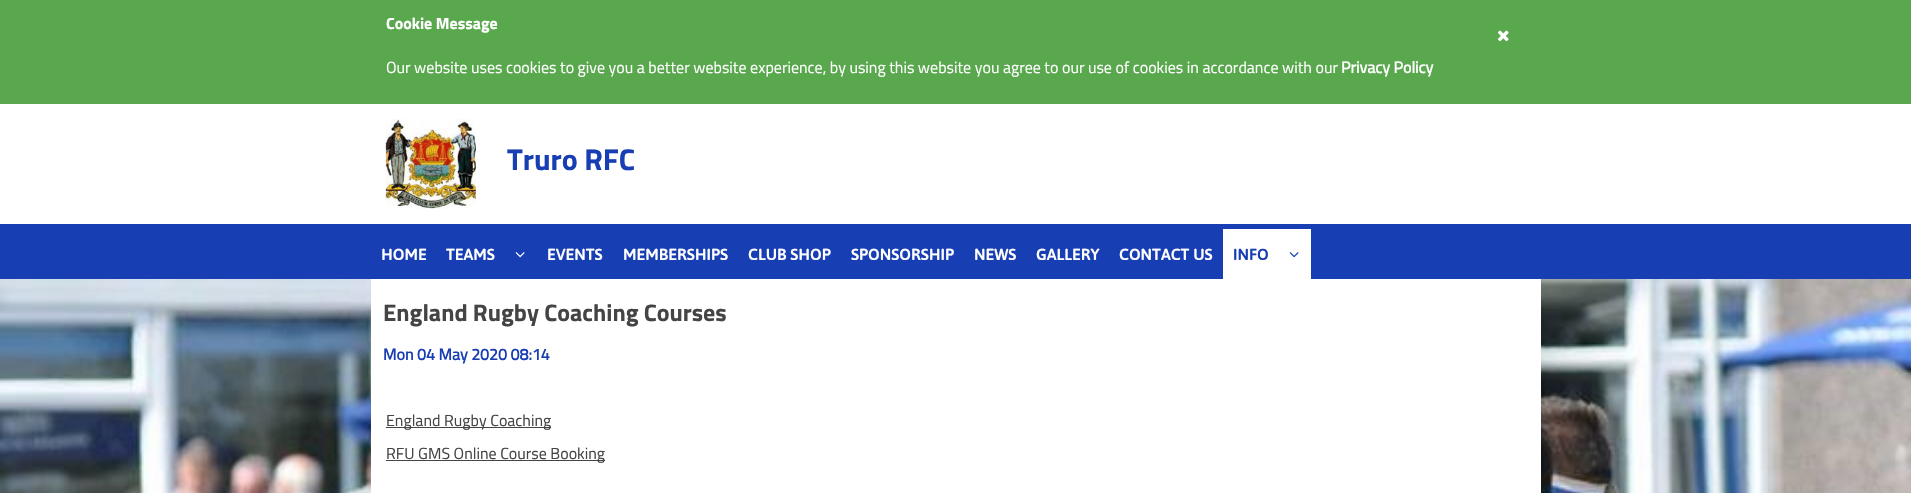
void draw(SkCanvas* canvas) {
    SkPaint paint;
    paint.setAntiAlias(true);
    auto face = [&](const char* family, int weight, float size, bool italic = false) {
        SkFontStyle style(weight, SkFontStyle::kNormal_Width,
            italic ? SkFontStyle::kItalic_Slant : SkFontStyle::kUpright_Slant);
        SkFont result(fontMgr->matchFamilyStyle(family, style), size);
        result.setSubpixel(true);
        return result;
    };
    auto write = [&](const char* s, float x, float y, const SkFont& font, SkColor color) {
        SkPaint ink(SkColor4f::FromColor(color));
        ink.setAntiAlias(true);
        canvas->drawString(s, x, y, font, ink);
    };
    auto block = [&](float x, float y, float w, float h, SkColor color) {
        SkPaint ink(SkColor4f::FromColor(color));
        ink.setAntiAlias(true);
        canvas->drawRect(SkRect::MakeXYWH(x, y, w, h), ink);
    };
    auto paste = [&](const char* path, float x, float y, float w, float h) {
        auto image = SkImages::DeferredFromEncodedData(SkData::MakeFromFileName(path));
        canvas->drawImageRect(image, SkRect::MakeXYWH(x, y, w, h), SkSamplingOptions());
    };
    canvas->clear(SK_ColorWHITE);
    block(0, 0, 1911, 104, SkColorSetRGB(90, 168, 78));
    auto kFont1 = face("Titillium Web", 700, 16);
    write("Cookie Message", 386, 29, kFont1, SK_ColorWHITE);
    paste("pic1.png", 1498, 30, 11, 12);
    auto kFont2 = face("Titillium Web", 400, 16);
    write("Our website uses cookies to give you a better website experience, by using this website you agree to our use of cookies in accordance with our", 386, 73, kFont2, SK_ColorWHITE);
    auto kFont3 = face("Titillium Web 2", 700, 16);
    write("Privacy Policy", 1341, 73, kFont3, SK_ColorWHITE);
    paste("pic2.png", 385, 119, 91, 90);
    auto kFont4 = face("Titillium Web", 700, 30);
    write("Truro RFC", 507, 170, kFont4, SkColorSetRGB(23, 62, 178));
    paste("pic5.png", 0, 279, 1911, 214);
    paint.setColor(SK_ColorBLACK);
    paint.setMaskFilter(SkMaskFilter::MakeBlur(kNormal_SkBlurStyle, 50));
    canvas->drawRect(SkRect::MakeXYWH(521, 369, 990, 113), paint);
    paint.setMaskFilter(nullptr);
    paint.setMaskFilter(SkMaskFilter::MakeBlur(kNormal_SkBlurStyle, 50));
    canvas->drawRect(SkRect::MakeXYWH(401, 369, 990, 113), paint);
    paint.setMaskFilter(nullptr);
    block(0, 224, 1911, 55, SkColorSetRGB(23, 62, 178));
    auto kFont5 = face("Asap", 500, 16);
    write("HOME", 381, 260, kFont5, SK_ColorWHITE);
    write("TEAMS", 446, 260, kFont5, SK_ColorWHITE);
    paste("pic3.png", 515, 252, 10, 6);
    write("EVENTS", 547, 260, kFont5, SK_ColorWHITE);
    write("MEMBERSHIPS", 623, 260, kFont5, SK_ColorWHITE);
    write("CLUB SHOP", 748, 260, kFont5, SK_ColorWHITE);
    write("SPONSORSHIP", 851, 260, kFont5, SK_ColorWHITE);
    write("NEWS", 974, 260, kFont5, SK_ColorWHITE);
    write("GALLERY", 1036, 260, kFont5, SK_ColorWHITE);
    write("CONTACT US", 1119, 260, kFont5, SK_ColorWHITE);
    block(1223, 229, 88, 50, SK_ColorWHITE);
    write("INFO", 1233, 260, kFont5, SkColorSetRGB(23, 62, 178));
    paste("pic4.png", 1289, 252, 10, 6);
    block(371, 279, 1170, 214, SK_ColorWHITE);
    auto kFont6 = face("Titillium Web", 700, 24);
    write("England Rugby Coaching Courses", 383, 321, kFont6, SkColorSetRGB(68, 68, 68));
    write("Mon 04 May 2020 08:14", 383, 360, kFont3, SkColorSetRGB(23, 62, 178));
    block(386, 427, 165, 1, SkColorSetRGB(68, 68, 68));
    write("England Rugby Coaching", 386, 426, kFont2, SkColorSetRGB(68, 68, 68));
    block(386, 460, 219, 1, SkColorSetRGB(68, 68, 68));
    write("RFU GMS Online Course Booking", 386, 459, kFont2, SkColorSetRGB(68, 68, 68));
}
